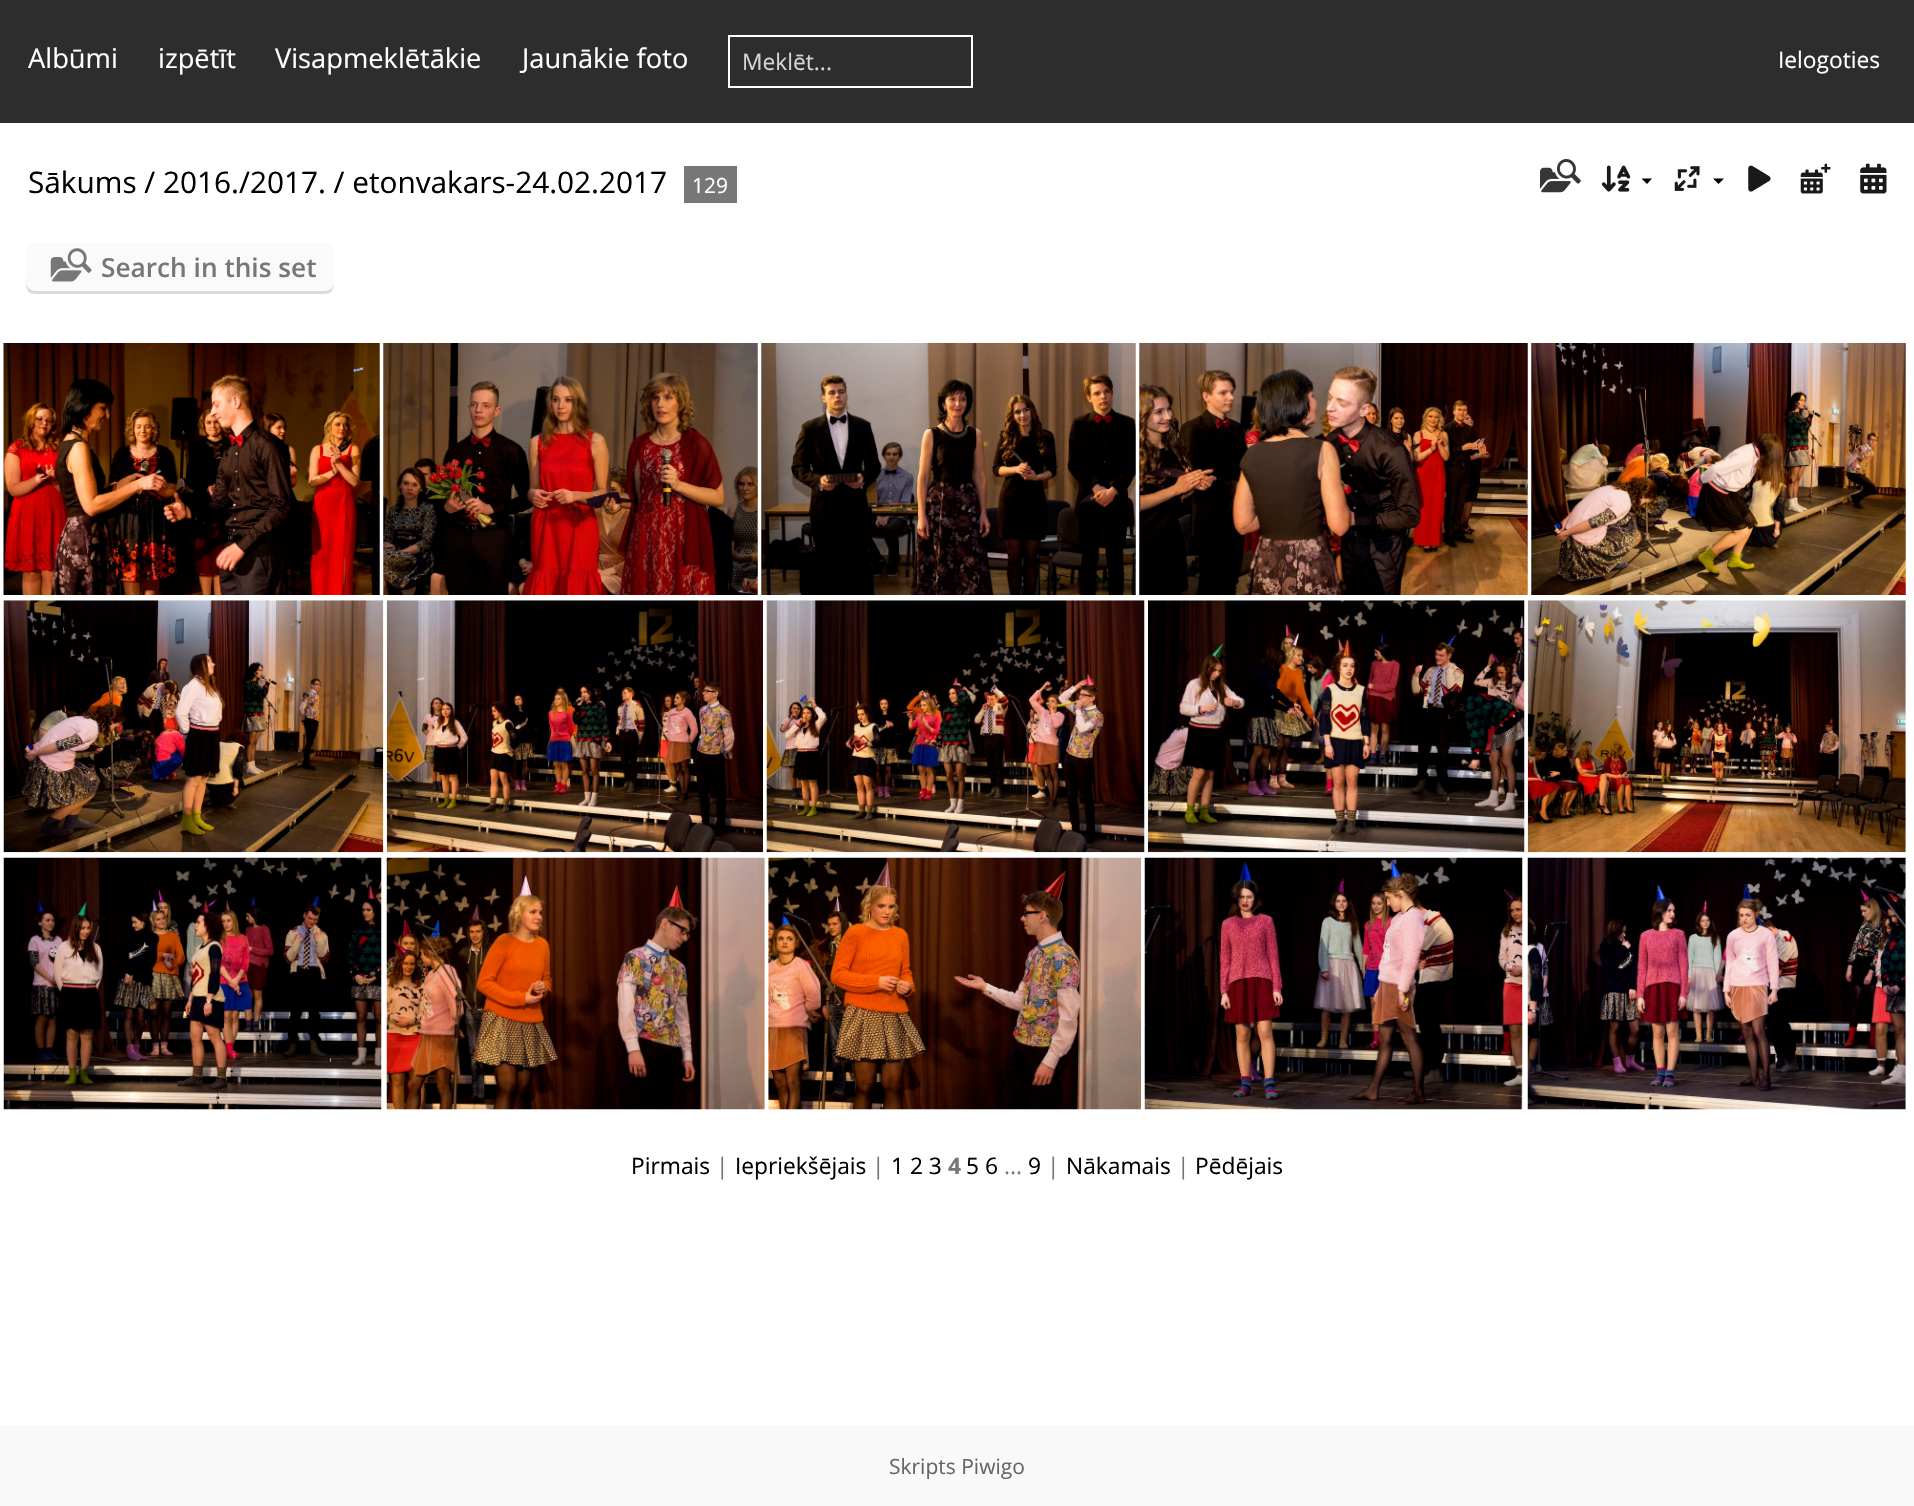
void draw(SkCanvas* canvas) {
    SkPaint paint;
    paint.setAntiAlias(true);
    auto face = [&](const char* family, int weight, float size, bool italic = false) {
        SkFontStyle style(weight, SkFontStyle::kNormal_Width,
            italic ? SkFontStyle::kItalic_Slant : SkFontStyle::kUpright_Slant);
        SkFont result(fontMgr->matchFamilyStyle(family, style), size);
        result.setSubpixel(true);
        return result;
    };
    auto write = [&](const char* s, float x, float y, const SkFont& font, SkColor color) {
        SkPaint ink(SkColor4f::FromColor(color));
        ink.setAntiAlias(true);
        canvas->drawString(s, x, y, font, ink);
    };
    auto block = [&](float x, float y, float w, float h, SkColor color) {
        SkPaint ink(SkColor4f::FromColor(color));
        ink.setAntiAlias(true);
        canvas->drawRect(SkRect::MakeXYWH(x, y, w, h), ink);
    };
    auto card = [&](float x, float y, float w, float h, float radius, SkColor color) {
        SkPaint ink(SkColor4f::FromColor(color));
        ink.setAntiAlias(true);
        canvas->drawRoundRect(SkRect::MakeXYWH(x, y, w, h), radius, radius, ink);
    };
    auto paste = [&](const char* path, float x, float y, float w, float h) {
        auto image = SkImages::DeferredFromEncodedData(SkData::MakeFromFileName(path));
        canvas->drawImageRect(image, SkRect::MakeXYWH(x, y, w, h), SkSamplingOptions());
    };
    canvas->clear(SK_ColorWHITE);
    block(0, 0, 1914, 123, SkColorSetRGB(45, 45, 45));
    auto kFont1 = face("Open Sans", 400, 27.25f);
    write("Albūmi", 28, 68, kFont1, SK_ColorWHITE);
    write("izpētīt", 158, 68, kFont1, SK_ColorWHITE);
    write("Visapmeklētākie", 275, 68, kFont1, SK_ColorWHITE);
    write("Jaunākie foto", 522, 68, kFont1, SK_ColorWHITE);
    paint.setStyle(SkPaint::kStroke_Style);
    paint.setStrokeWidth(2);
    paint.setColor(SK_ColorWHITE);
    canvas->drawRect(SkRect::MakeXYWH(729, 36, 243, 51), paint);
    auto kFont2 = face("Open Sans", 400, 22.75f);
    write("Meklēt...", 742, 70, kFont2, SkColorSetRGB(214, 214, 214));
    write("Ielogoties", 1778, 68, kFont2, SK_ColorWHITE);
    auto kFont3 = face("Open Sans", 400, 29.75f);
    write("Sākums / 2016./2017. / etonvakars-24.02.2017", 28, 193, kFont3, SK_ColorBLACK);
    block(684, 166, 53, 37, SkColorSetRGB(119, 119, 119));
    auto kFont4 = face("Open Sans", 400, 21);
    write("129", 692, 193, kFont4, SK_ColorWHITE);
    paste("pic1.png", 1540, 159, 41, 34);
    paste("pic2.png", 1601, 165, 30, 27);
    paint.setStyle(SkPaint::kFill_Style);
    paint.setColor(SK_ColorBLACK);
    canvas->drawPath(SkPathBuilder().moveTo(1641.5f, 178.5f).lineTo(1652, 178.5f).lineTo(1647, 184).close().detach(), paint);
    paste("pic3.png", 1674, 166, 26, 25);
    canvas->drawPath(SkPathBuilder().moveTo(1713, 178.5f).lineTo(1724, 178.5f).lineTo(1718.5f, 184).close().detach(), paint);
    paste("pic4.png", 1748, 165, 23, 27);
    paste("pic5.png", 1800, 163, 31, 31);
    paste("pic6.png", 1860, 163, 27, 31);
    paint.setColor(SkColorSetRGB(219, 219, 219));
    canvas->drawPath(SkPathBuilder().moveTo(26, 252).lineTo(26, 275).cubicTo(26, 282, 24, 294, 35, 294).lineTo(325, 294).cubicTo(331, 294, 334, 289, 334, 284).cubicTo(333, 288, 330, 290, 326, 290).lineTo(35, 290).cubicTo(30, 290, 26, 287, 26, 282).close().detach(), paint);
    card(26, 242, 308, 49, 9, SkColorSetRGB(250, 250, 250));
    paste("pic7.png", 50, 248, 42, 34);
    auto kFont5 = face("Open Sans", 600, 26.25f);
    write("Search in this set", 101, 277, kFont5, SkColorSetRGB(119, 119, 119));
    paste("pic8.png", 3, 343, 377, 252);
    paste("pic9.png", 383, 343, 375, 252);
    paste("pic10.png", 761, 343, 375, 252);
    paste("pic11.png", 1139, 343, 389, 252);
    paste("pic12.png", 1531, 343, 375, 252);
    paste("pic13.png", 3, 600, 381, 253);
    paste("pic14.png", 386, 600, 377, 253);
    paste("pic15.png", 766, 600, 379, 253);
    paste("pic16.png", 1148, 600, 377, 253);
    paste("pic17.png", 1527, 600, 379, 253);
    paste("pic18.png", 3, 857, 379, 253);
    paste("pic19.png", 386, 857, 379, 253);
    paste("pic20.png", 768, 857, 373, 253);
    paste("pic21.png", 1144, 857, 379, 253);
    paste("pic22.png", 1527, 857, 379, 253);
    write("Pirmais", 631, 1174, kFont2, SK_ColorBLACK);
    write("|", 716, 1174, kFont2, SkColorSetRGB(119, 119, 119));
    write("Iepriekšējais", 735, 1174, kFont2, SK_ColorBLACK);
    write("|", 872, 1174, kFont2, SkColorSetRGB(119, 119, 119));
    write("1 2 3", 891, 1174, kFont2, SK_ColorBLACK);
    auto kFont6 = face("Open Sans", 700, 22.75f);
    write("4", 948, 1174, kFont6, SkColorSetRGB(119, 119, 119));
    write("5 6", 966, 1174, kFont2, SK_ColorBLACK);
    write("...", 1004, 1174, kFont2, SkColorSetRGB(119, 119, 119));
    write("9", 1028, 1174, kFont2, SK_ColorBLACK);
    write("|", 1047, 1174, kFont2, SkColorSetRGB(119, 119, 119));
    write("Nākamais", 1066, 1174, kFont2, SK_ColorBLACK);
    write("|", 1177, 1174, kFont2, SkColorSetRGB(119, 119, 119));
    write("Pēdējais", 1195, 1174, kFont2, SK_ColorBLACK);
    block(0, 1425, 1914, 81, SkColorSetRGB(249, 249, 249));
    write("Skripts Piwigo", 889, 1474, kFont4, SkColorSetRGB(102, 102, 102));
}
